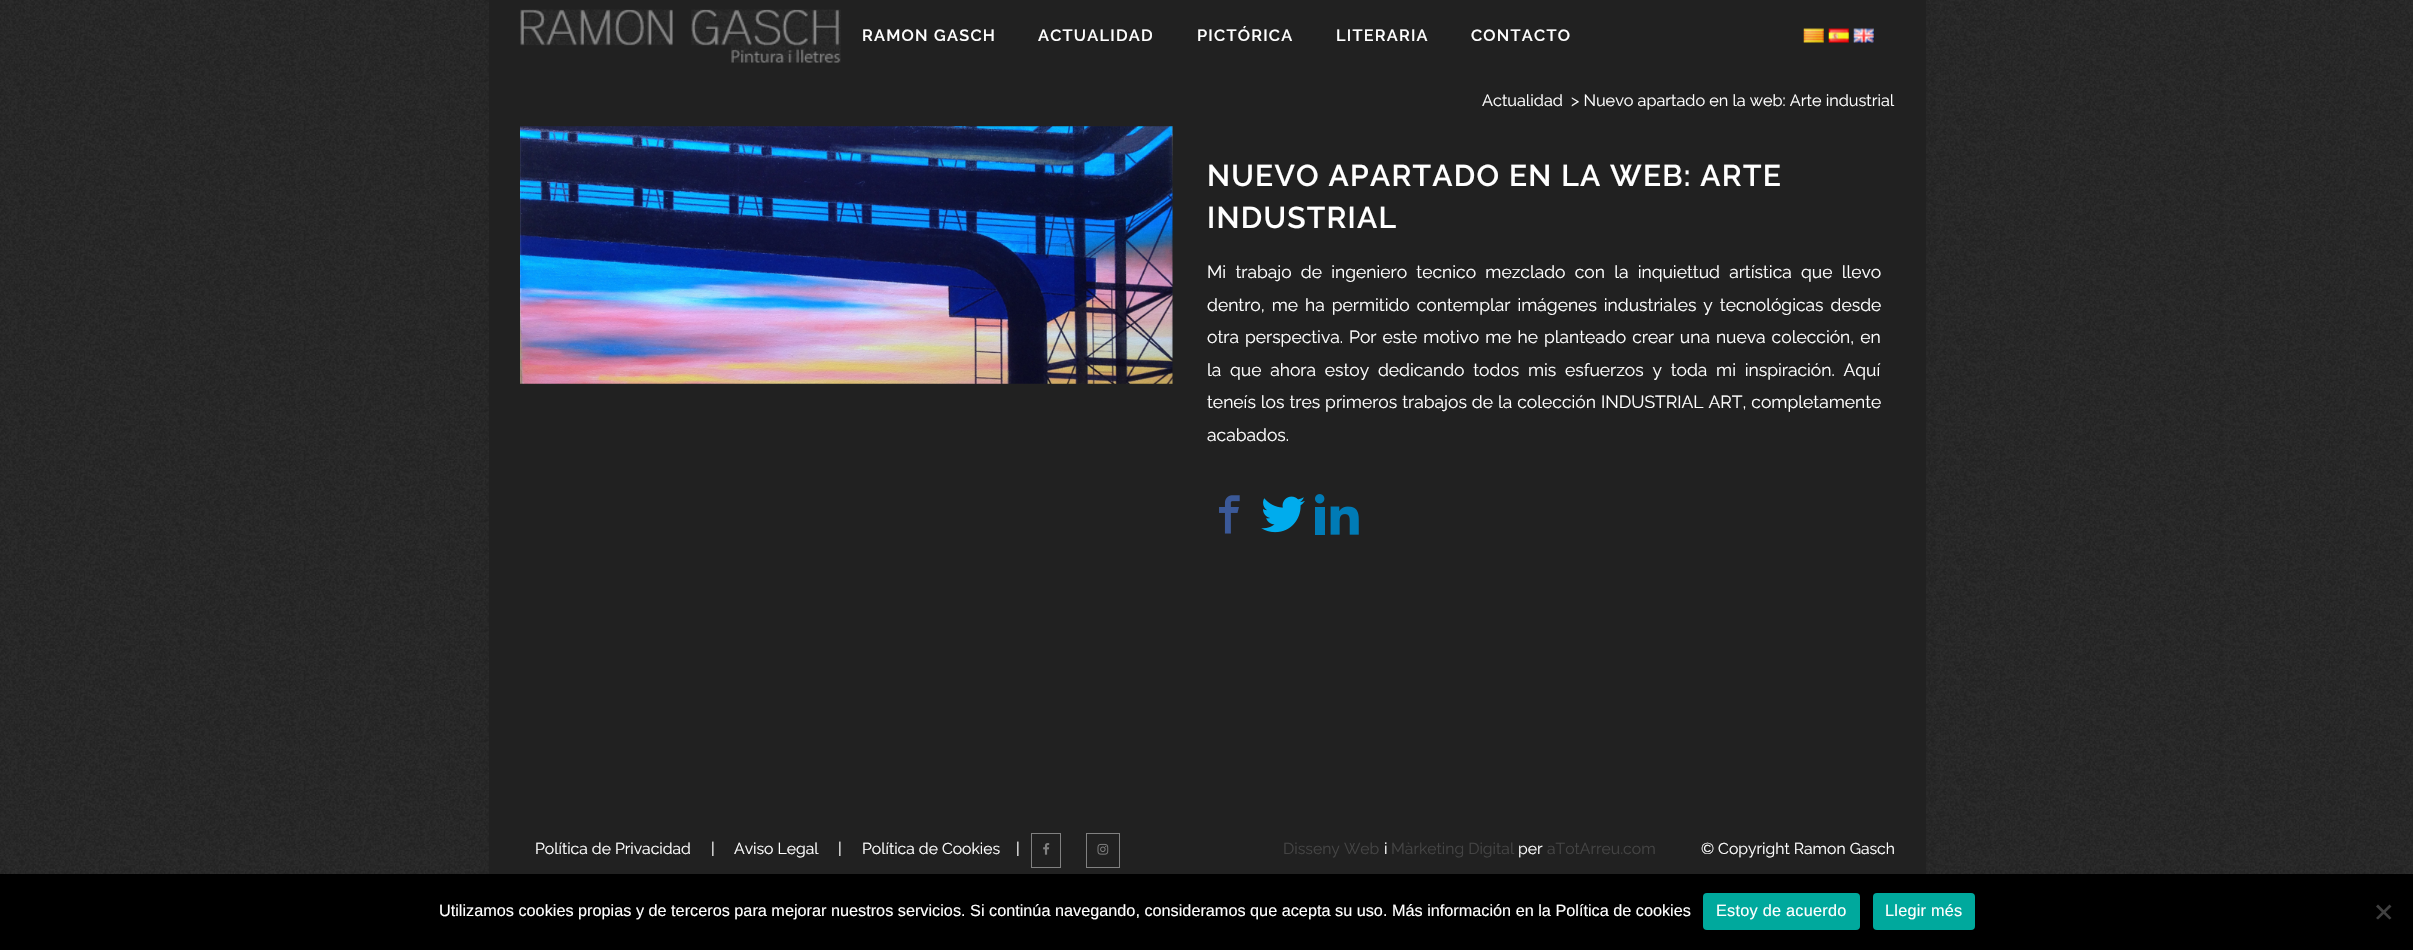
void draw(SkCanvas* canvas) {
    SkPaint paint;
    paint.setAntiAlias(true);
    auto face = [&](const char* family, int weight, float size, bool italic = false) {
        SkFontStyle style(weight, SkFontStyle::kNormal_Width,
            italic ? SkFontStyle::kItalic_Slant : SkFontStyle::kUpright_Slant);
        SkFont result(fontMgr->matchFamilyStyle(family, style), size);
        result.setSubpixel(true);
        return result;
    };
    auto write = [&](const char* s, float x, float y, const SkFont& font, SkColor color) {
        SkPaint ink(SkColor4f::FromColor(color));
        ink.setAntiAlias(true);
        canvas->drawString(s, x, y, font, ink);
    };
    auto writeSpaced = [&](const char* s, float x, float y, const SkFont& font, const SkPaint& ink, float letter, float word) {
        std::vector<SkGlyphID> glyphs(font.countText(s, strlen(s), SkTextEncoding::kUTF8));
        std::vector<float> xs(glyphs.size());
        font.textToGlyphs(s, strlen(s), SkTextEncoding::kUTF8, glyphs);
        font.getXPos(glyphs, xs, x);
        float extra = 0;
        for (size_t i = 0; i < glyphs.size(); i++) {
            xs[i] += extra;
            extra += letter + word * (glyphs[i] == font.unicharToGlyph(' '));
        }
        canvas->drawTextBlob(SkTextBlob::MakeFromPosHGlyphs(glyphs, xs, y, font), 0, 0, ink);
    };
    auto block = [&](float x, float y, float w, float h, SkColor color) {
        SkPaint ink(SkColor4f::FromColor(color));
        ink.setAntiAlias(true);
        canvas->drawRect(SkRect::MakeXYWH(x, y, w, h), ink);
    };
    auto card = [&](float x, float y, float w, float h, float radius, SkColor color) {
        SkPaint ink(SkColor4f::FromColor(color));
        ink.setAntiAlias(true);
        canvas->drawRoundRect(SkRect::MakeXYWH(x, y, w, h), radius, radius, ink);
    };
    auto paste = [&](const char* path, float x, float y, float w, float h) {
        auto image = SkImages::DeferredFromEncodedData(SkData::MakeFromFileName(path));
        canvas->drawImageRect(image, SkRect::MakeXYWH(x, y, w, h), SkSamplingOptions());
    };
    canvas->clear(SK_ColorWHITE);
    paste("pic1.png", 0, 0, 2413, 874);
    block(489, 0, 1437, 874, SkColorSetRGB(33, 33, 33));
    paste("pic2.png", 520, 9, 321, 54);
    auto kFont1 = face("Raleway", 600, 16.25f);
    paint.setColor(SK_ColorWHITE);
    writeSpaced("RAMON GASCH", 862, 41, kFont1, paint, 1.25f, 0);
    writeSpaced("ACTUALIDAD", 1038, 41, kFont1, paint, 1.25f, 0);
    writeSpaced("PICTÓRICA", 1197, 41, kFont1, paint, 1.25f, 0);
    writeSpaced("LITERARIA", 1336, 41, kFont1, paint, 1.25f, 0);
    writeSpaced("CONTACTO", 1471, 41, kFont1, paint, 1.25f, 0);
    paste("pic3.png", 1803, 28, 21, 15);
    paste("pic4.png", 1828, 28, 21, 15);
    paste("pic5.png", 1853, 28, 21, 15);
    auto kFont2 = face("Raleway", 400, 16.25f);
    write("Actualidad", 1482, 106, kFont2, SK_ColorWHITE);
    write("> Nuevo apartado en la web: Arte industrial", 1571, 106, kFont2, SK_ColorWHITE);
    paste("pic6.png", 520, 126, 653, 258);
    auto kFont3 = face("Raleway", 600, 30);
    writeSpaced("NUEVO APARTADO EN LA WEB: ARTE", 1207, 186, kFont3, paint, 1.25f, 0);
    writeSpaced("INDUSTRIAL", 1207, 228, kFont3, paint, 1.25f, 0);
    auto kFont4 = face("Raleway", 400, 17.5f);
    writeSpaced("Mi trabajo de ingeniero tecnico mezclado con la inquiettud artística que llevo", 1207, 278, kFont4, paint, 0, 4.75f);
    writeSpaced("dentro, me ha permitido contemplar imágenes industriales y tecnológicas desde", 1207, 311, kFont4, paint, 0, 2.5f);
    writeSpaced("otra perspectiva. Por este motivo me he planteado crear una nueva colección, en", 1207, 343, kFont4, paint, 0, 1.5f);
    writeSpaced("la que ahora estoy dedicando todos mis esfuerzos y toda mi inspiración. Aquí", 1207, 376, kFont4, paint, 0, 4.25f);
    writeSpaced("teneís los tres primeros trabajos de la colección INDUSTRIAL ART, completamente", 1207, 408, kFont4, paint, 0, 0.5f);
    write("acabados.", 1207, 441, kFont4, SK_ColorWHITE);
    paste("pic7.png", 1219, 495, 21, 39);
    paste("pic8.png", 1261, 496, 44, 37);
    paste("pic9.png", 1315, 494, 44, 41);
    auto kFont5 = face("Raleway", 400, 15.75f);
    write("Política de Privacidad", 535, 854, kFont5, SK_ColorWHITE);
    write("|", 711, 854, kFont5, SK_ColorWHITE);
    write("Aviso Legal", 734, 854, kFont5, SK_ColorWHITE);
    write("|", 838, 854, kFont5, SK_ColorWHITE);
    write("Política de Cookies", 862, 854, kFont5, SK_ColorWHITE);
    write("|", 1016, 854, kFont5, SK_ColorWHITE);
    paint.setStyle(SkPaint::kStroke_Style);
    paint.setStrokeWidth(1);
    paint.setColor(SkColorSetRGB(129, 129, 129));
    canvas->drawRect(SkRect::MakeXYWH(1031.5f, 833.5f, 29, 34), paint);
    paste("pic10.png", 1043, 843, 7, 12);
    canvas->drawRect(SkRect::MakeXYWH(1086.5f, 833.5f, 33, 34), paint);
    paste("pic11.png", 1097, 843, 12, 12);
    write("Disseny Web", 1283, 854, kFont5, SkColorSetRGB(68, 68, 68));
    write("i", 1384, 854, kFont5, SK_ColorWHITE);
    write("Màrketing Digital", 1391, 854, kFont5, SkColorSetRGB(68, 68, 68));
    write("per", 1518, 854, kFont5, SK_ColorWHITE);
    write("aTotArreu.com", 1547, 854, kFont5, SkColorSetRGB(68, 68, 68));
    write("© Copyright Ramon Gasch", 1701, 854, kFont5, SK_ColorWHITE);
    block(0, 874, 2413, 76, SK_ColorBLACK);
    auto kFont6 = face("Liberation Sans", 400, 16.25f);
    write("Utilizamos cookies propias y de terceros para mejorar nuestros servicios. Si continúa navegando, consideramos que acepta su uso. Más información en la Política de cookies", 439, 916, kFont6, SK_ColorWHITE);
    card(1703, 893, 157, 37, 4, SkColorSetRGB(0, 169, 157));
    paint.setStyle(SkPaint::kFill_Style);
    paint.setColor(SK_ColorWHITE);
    writeSpaced("Estoy de acuerdo", 1716, 916, kFont6, paint, 0.25f, 0);
    card(1873, 893, 102, 37, 4, SkColorSetRGB(0, 169, 157));
    writeSpaced("Llegir més", 1885, 916, kFont6, paint, 0.25f, 0);
    paint.setColor(SkColorSetRGB(64, 64, 64));
    canvas->drawPath(SkPathBuilder().moveTo(2389.5f, 904.5f).lineTo(2391.5f, 906.5f).lineTo(2378, 919.5f).lineTo(2376, 918).close().detach(), paint);
    canvas->drawPath(SkPathBuilder().moveTo(2376, 906.5f).lineTo(2378, 904.5f).lineTo(2391.5f, 918).lineTo(2389.5f, 919.5f).close().detach(), paint);
}
